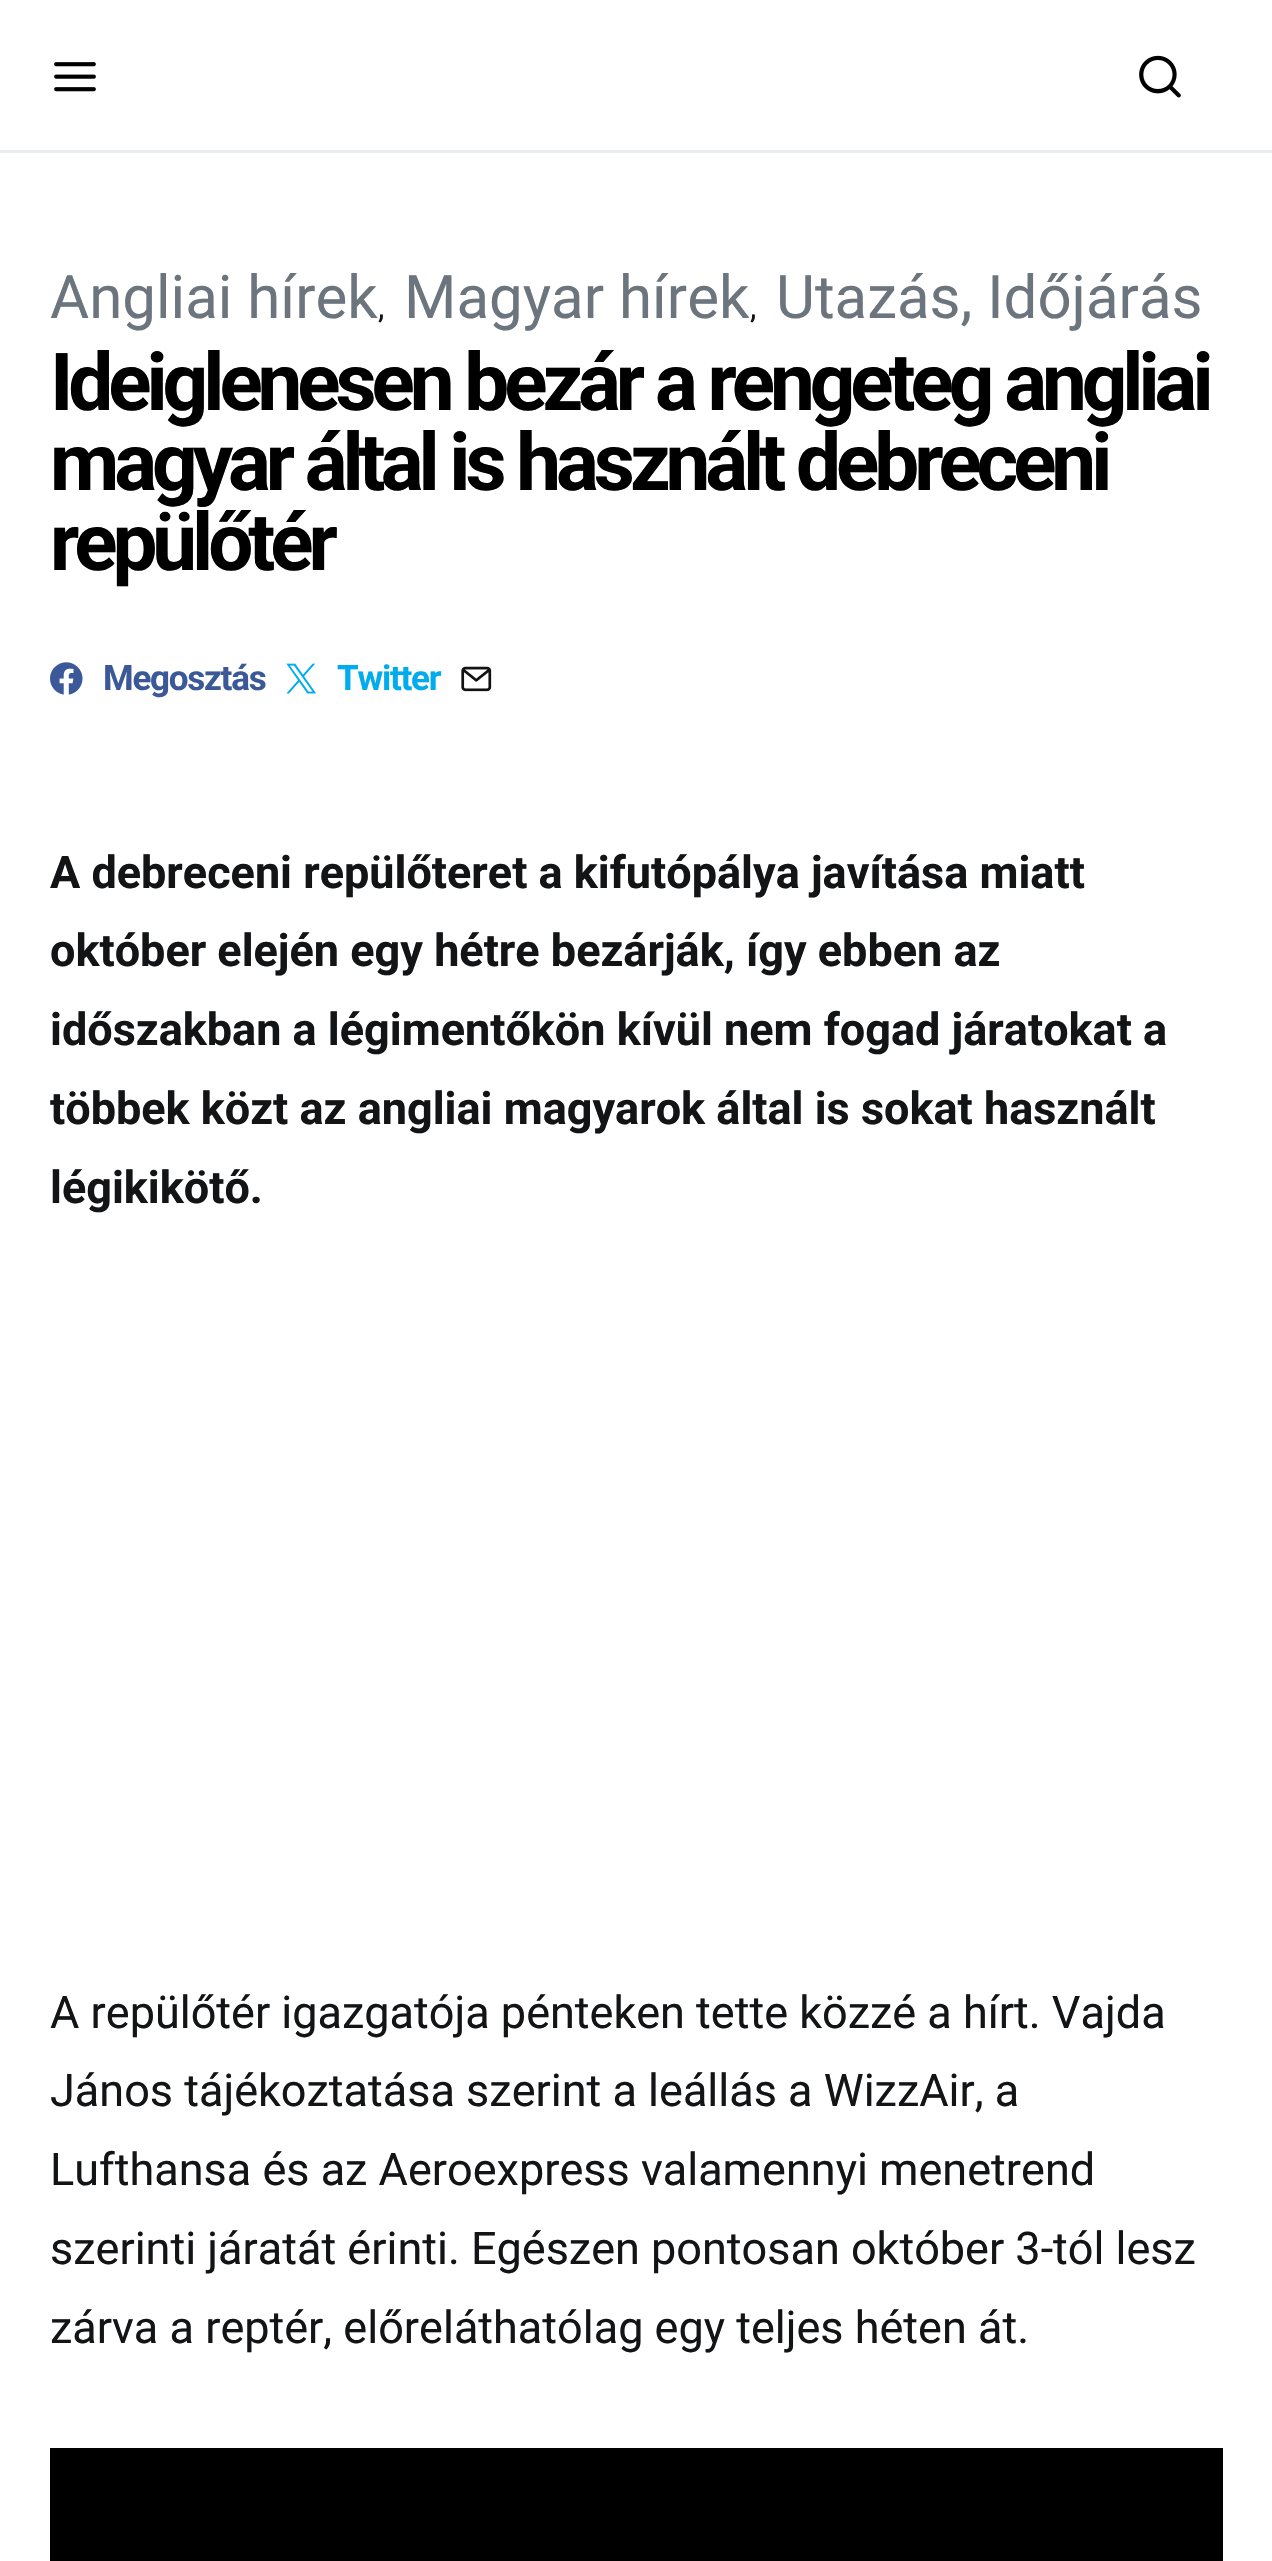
void draw(SkCanvas* canvas) {
    SkPaint paint;
    paint.setAntiAlias(true);
    auto face = [&](const char* family, int weight, float size, bool italic = false) {
        SkFontStyle style(weight, SkFontStyle::kNormal_Width,
            italic ? SkFontStyle::kItalic_Slant : SkFontStyle::kUpright_Slant);
        SkFont result(fontMgr->matchFamilyStyle(family, style), size);
        result.setSubpixel(true);
        return result;
    };
    auto write = [&](const char* s, float x, float y, const SkFont& font, SkColor color) {
        SkPaint ink(SkColor4f::FromColor(color));
        ink.setAntiAlias(true);
        canvas->drawString(s, x, y, font, ink);
    };
    auto writeSpaced = [&](const char* s, float x, float y, const SkFont& font, const SkPaint& ink, float letter, float word) {
        std::vector<SkGlyphID> glyphs(font.countText(s, strlen(s), SkTextEncoding::kUTF8));
        std::vector<float> xs(glyphs.size());
        font.textToGlyphs(s, strlen(s), SkTextEncoding::kUTF8, glyphs);
        font.getXPos(glyphs, xs, x);
        float extra = 0;
        for (size_t i = 0; i < glyphs.size(); i++) {
            xs[i] += extra;
            extra += letter + word * (glyphs[i] == font.unicharToGlyph(' '));
        }
        canvas->drawTextBlob(SkTextBlob::MakeFromPosHGlyphs(glyphs, xs, y, font), 0, 0, ink);
    };
    auto block = [&](float x, float y, float w, float h, SkColor color) {
        SkPaint ink(SkColor4f::FromColor(color));
        ink.setAntiAlias(true);
        canvas->drawRect(SkRect::MakeXYWH(x, y, w, h), ink);
    };
    auto paste = [&](const char* path, float x, float y, float w, float h) {
        auto image = SkImages::DeferredFromEncodedData(SkData::MakeFromFileName(path));
        canvas->drawImageRect(image, SkRect::MakeXYWH(x, y, w, h), SkSamplingOptions());
    };
    canvas->clear(SK_ColorWHITE);
    block(0, 150, 1272, 3, SkColorSetRGB(233, 236, 239));
    paste("pic1.png", 54, 62, 42, 30);
    paste("pic2.png", 1139, 55, 42, 43);
    auto kFont1 = face("Roboto", 400, 60);
    write("Angliai hírek", 50, 318, kFont1, SkColorSetRGB(108, 117, 125));
    auto kFont2 = face("Roboto", 400, 32);
    write(",", 378, 318, kFont2, SkColorSetRGB(18, 20, 22));
    write("Magyar hírek", 404, 318, kFont1, SkColorSetRGB(108, 117, 125));
    write(",", 750, 318, kFont2, SkColorSetRGB(18, 20, 22));
    write("Utazás, Időjárás", 776, 318, kFont1, SkColorSetRGB(108, 117, 125));
    auto kFont3 = face("Roboto", 700, 80);
    paint.setColor(SK_ColorBLACK);
    writeSpaced("Ideiglenesen bezár a rengeteg angliai", 50, 410, kFont3, paint, -5.05f, 0);
    writeSpaced("magyar által is használt debreceni", 50, 490, kFont3, paint, -5.05f, 0);
    writeSpaced("repülőtér", 50, 570, kFont3, paint, -5.05f, 0);
    paste("pic3.png", 50, 662, 33, 33);
    auto kFont4 = face("Roboto", 700, 35);
    paint.setColor(SkColorSetRGB(59, 89, 152));
    writeSpaced("Megosztás", 103, 690, kFont4, paint, -1.25f, 0);
    paste("pic4.png", 286, 663, 30, 31);
    paint.setColor(SkColorSetRGB(0, 172, 237));
    writeSpaced("Twitter", 337, 690, kFont4, paint, -1.25f, 0);
    paste("pic5.png", 461, 666, 31, 26);
    auto kFont5 = face("Roboto", 700, 45);
    write("A debreceni repülőteret a kifutópálya javítása miatt", 50, 888, kFont5, SkColorSetRGB(18, 20, 22));
    write("október elején egy hétre bezárják, így ebben az", 50, 966, kFont5, SkColorSetRGB(18, 20, 22));
    write("időszakban a légimentőkön kívül nem fogad járatokat a", 50, 1045, kFont5, SkColorSetRGB(18, 20, 22));
    write("többek közt az angliai magyarok által is sokat használt", 50, 1124, kFont5, SkColorSetRGB(18, 20, 22));
    write("légikikötő.", 50, 1203, kFont5, SkColorSetRGB(18, 20, 22));
    auto kFont6 = face("Roboto", 400, 45);
    write("A repülőtér igazgatója pénteken tette közzé a hírt. Vajda", 50, 2028, kFont6, SkColorSetRGB(18, 20, 22));
    write("János tájékoztatása szerint a leállás a WizzAir, a", 50, 2106, kFont6, SkColorSetRGB(18, 20, 22));
    write("Lufthansa és az Aeroexpress valamennyi menetrend", 50, 2185, kFont6, SkColorSetRGB(18, 20, 22));
    write("szerinti járatát érinti. Egészen pontosan október 3-tól lesz", 50, 2264, kFont6, SkColorSetRGB(18, 20, 22));
    write("zárva a reptér, előreláthatólag egy teljes héten át.", 50, 2343, kFont6, SkColorSetRGB(18, 20, 22));
    block(50, 2448, 1173, 113, SK_ColorBLACK);
}
